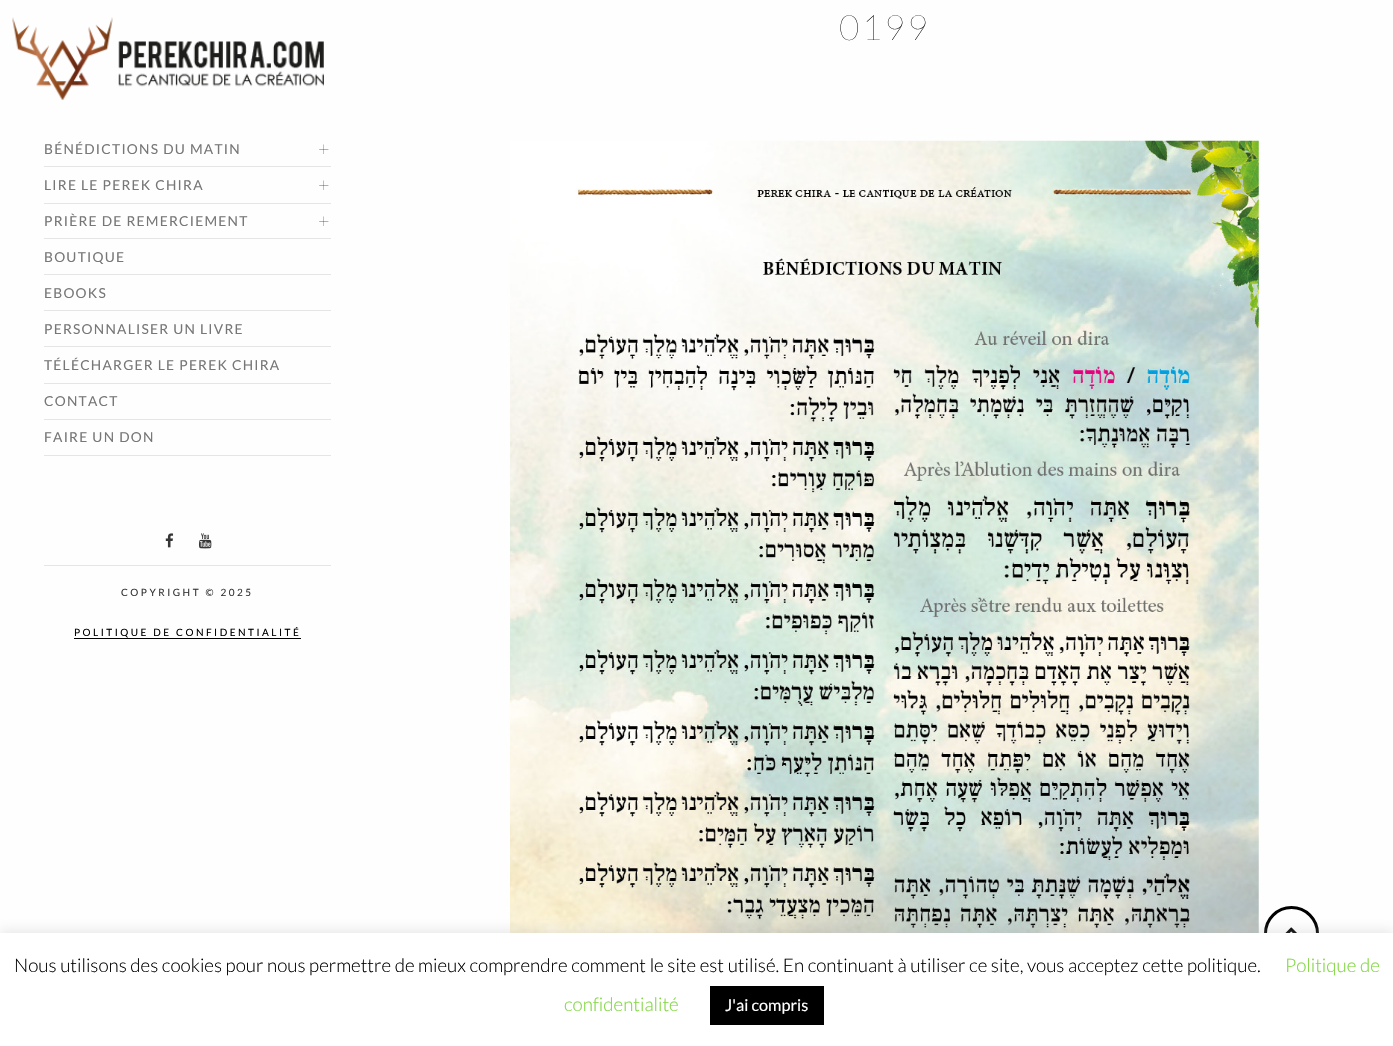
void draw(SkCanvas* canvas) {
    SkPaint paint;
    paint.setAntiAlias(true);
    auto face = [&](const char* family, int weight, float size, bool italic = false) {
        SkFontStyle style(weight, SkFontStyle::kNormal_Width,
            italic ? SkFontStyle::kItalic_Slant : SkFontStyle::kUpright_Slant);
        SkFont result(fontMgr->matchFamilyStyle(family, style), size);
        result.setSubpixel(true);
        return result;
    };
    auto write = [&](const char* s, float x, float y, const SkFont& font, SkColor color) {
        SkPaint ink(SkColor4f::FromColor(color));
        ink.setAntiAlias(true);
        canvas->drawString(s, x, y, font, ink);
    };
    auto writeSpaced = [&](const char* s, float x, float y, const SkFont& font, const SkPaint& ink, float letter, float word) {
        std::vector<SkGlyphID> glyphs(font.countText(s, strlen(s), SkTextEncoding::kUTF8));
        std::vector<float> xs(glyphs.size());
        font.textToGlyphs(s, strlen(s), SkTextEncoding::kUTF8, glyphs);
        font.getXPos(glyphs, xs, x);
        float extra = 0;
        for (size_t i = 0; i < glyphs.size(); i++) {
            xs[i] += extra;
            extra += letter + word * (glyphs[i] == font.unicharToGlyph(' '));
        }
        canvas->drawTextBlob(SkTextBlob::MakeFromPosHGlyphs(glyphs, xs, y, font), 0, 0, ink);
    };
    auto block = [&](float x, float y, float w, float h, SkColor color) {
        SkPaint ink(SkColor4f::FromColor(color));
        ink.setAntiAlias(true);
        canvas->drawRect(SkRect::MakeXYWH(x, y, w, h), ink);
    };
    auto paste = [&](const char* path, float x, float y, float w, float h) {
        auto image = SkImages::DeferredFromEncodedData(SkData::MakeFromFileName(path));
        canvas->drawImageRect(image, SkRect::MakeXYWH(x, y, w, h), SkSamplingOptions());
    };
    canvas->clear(SkColorSetRGB(254, 254, 254));
    auto kFont1 = face("Lato", 100, 35);
    paint.setColor(SK_ColorBLACK);
    writeSpaced("0199", 839, 40, kFont1, paint, 2.5f, 0);
    paste("pic1.png", 510, 140, 749, 793);
    paint.setStyle(SkPaint::kStroke_Style);
    paint.setStrokeWidth(3);
    canvas->drawCircle(1291.5f, 933.5f, 26, paint);
    paste("pic2.png", 1285, 927, 12, 6);
    paste("pic3.png", 12, 17, 312, 83);
    block(44, 166, 287, 1, SkColorSetRGB(229, 229, 229));
    auto kFont2 = face("Lato", 400, 13.75f);
    paint.setStyle(SkPaint::kFill_Style);
    paint.setColor(SkColorSetRGB(119, 119, 119));
    writeSpaced("BÉNÉDICTIONS DU MATIN", 44, 154, kFont2, paint, 1.25f, 0);
    auto kFont3 = face("Lato", 100, 20);
    paint.setColor(SK_ColorBLACK);
    writeSpaced("+", 318, 156, kFont3, paint, 1.25f, 0);
    block(44, 203, 287, 1, SkColorSetRGB(229, 229, 229));
    paint.setColor(SkColorSetRGB(119, 119, 119));
    writeSpaced("LIRE LE PEREK CHIRA", 44, 190, kFont2, paint, 1.25f, 0);
    paint.setColor(SK_ColorBLACK);
    writeSpaced("+", 318, 192, kFont3, paint, 1.25f, 0);
    block(44, 238, 287, 1, SkColorSetRGB(229, 229, 229));
    paint.setColor(SkColorSetRGB(119, 119, 119));
    writeSpaced("PRIÈRE DE REMERCIEMENT", 44, 226, kFont2, paint, 1.25f, 0);
    paint.setColor(SK_ColorBLACK);
    writeSpaced("+", 318, 228, kFont3, paint, 1.25f, 0);
    block(44, 274, 287, 1, SkColorSetRGB(229, 229, 229));
    paint.setColor(SkColorSetRGB(119, 119, 119));
    writeSpaced("BOUTIQUE", 44, 262, kFont2, paint, 1.25f, 0);
    block(44, 310, 287, 1, SkColorSetRGB(229, 229, 229));
    writeSpaced("EBOOKS", 44, 298, kFont2, paint, 1.25f, 0);
    block(44, 346, 287, 1, SkColorSetRGB(229, 229, 229));
    writeSpaced("PERSONNALISER UN LIVRE", 44, 334, kFont2, paint, 1.25f, 0);
    block(44, 383, 287, 1, SkColorSetRGB(229, 229, 229));
    writeSpaced("TÉLÉCHARGER LE PEREK CHIRA", 44, 370, kFont2, paint, 1.25f, 0);
    block(44, 419, 287, 1, SkColorSetRGB(229, 229, 229));
    writeSpaced("CONTACT", 44, 406, kFont2, paint, 1.25f, 0);
    block(44, 455, 287, 1, SkColorSetRGB(229, 229, 229));
    writeSpaced("FAIRE UN DON", 44, 442, kFont2, paint, 1.25f, 0);
    paste("pic4.png", 165, 533, 9, 15);
    paste("pic5.png", 199, 533, 13, 16);
    block(44, 565, 287, 1, SkColorSetRGB(229, 229, 229));
    auto kFont4 = face("Lato", 400, 10);
    paint.setColor(SkColorSetRGB(54, 54, 54));
    writeSpaced("COPYRIGHT © 2025", 121, 596, kFont4, paint, 2.5f, 0);
    paint.setColor(SK_ColorBLACK);
    writeSpaced("POLITIQUE DE CONFIDENTIALITÉ", 74, 636, kFont4, paint, 2.5f, 0);
    block(74, 638, 227, 1, SK_ColorBLACK);
    paint.setColor(SkColorSetARGB(77, 172, 171, 171));
    paint.setMaskFilter(SkMaskFilter::MakeBlur(kNormal_SkBlurStyle, 6));
    canvas->drawRect(SkRect::MakeXYWH(0, 931, 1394, 114), paint);
    paint.setMaskFilter(nullptr);
    block(0, 933, 1393, 113, SK_ColorWHITE);
    auto kFont5 = face("Lato", 300, 18.75f);
    write("Nous utilisons des cookies pour nous permettre de mieux comprendre comment le site est utilisé. En continuant à utiliser ce site, vous acceptez cette politique.", 14, 972, kFont5, SK_ColorBLACK);
    write("Politique de", 1285, 972, kFont5, SkColorSetRGB(129, 215, 66));
    write("confidentialité", 564, 1011, kFont5, SkColorSetRGB(129, 215, 66));
    block(710, 986, 114, 39, SK_ColorBLACK);
    auto kFont6 = face("Lato", 400, 16.25f);
    write("J'ai compris", 725, 1011, kFont6, SK_ColorWHITE);
}
